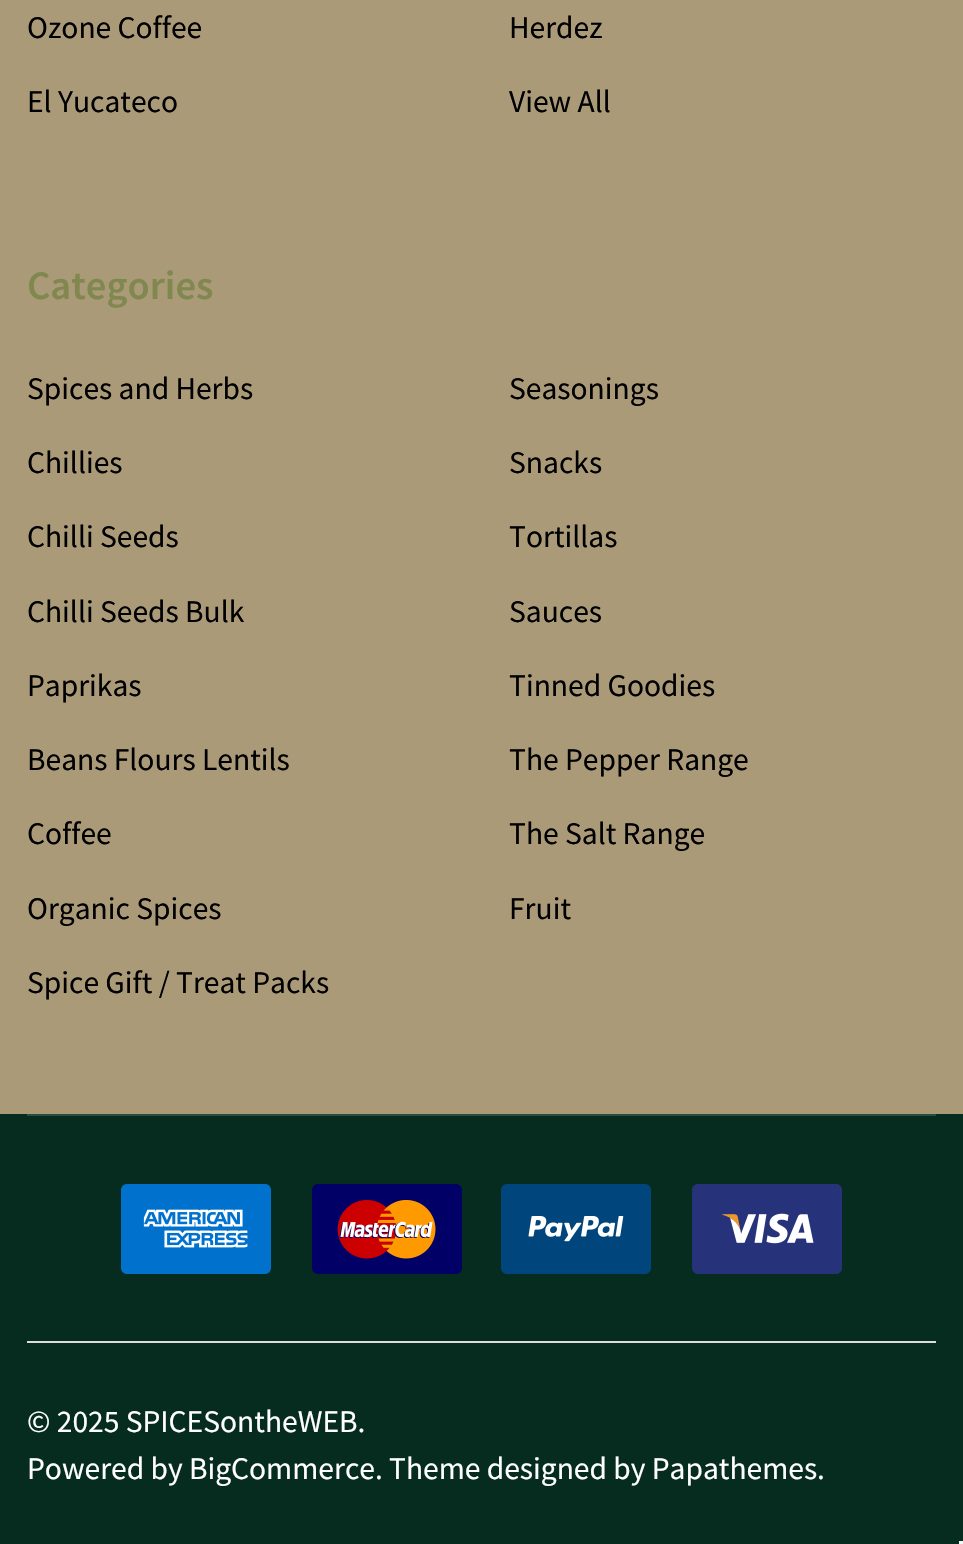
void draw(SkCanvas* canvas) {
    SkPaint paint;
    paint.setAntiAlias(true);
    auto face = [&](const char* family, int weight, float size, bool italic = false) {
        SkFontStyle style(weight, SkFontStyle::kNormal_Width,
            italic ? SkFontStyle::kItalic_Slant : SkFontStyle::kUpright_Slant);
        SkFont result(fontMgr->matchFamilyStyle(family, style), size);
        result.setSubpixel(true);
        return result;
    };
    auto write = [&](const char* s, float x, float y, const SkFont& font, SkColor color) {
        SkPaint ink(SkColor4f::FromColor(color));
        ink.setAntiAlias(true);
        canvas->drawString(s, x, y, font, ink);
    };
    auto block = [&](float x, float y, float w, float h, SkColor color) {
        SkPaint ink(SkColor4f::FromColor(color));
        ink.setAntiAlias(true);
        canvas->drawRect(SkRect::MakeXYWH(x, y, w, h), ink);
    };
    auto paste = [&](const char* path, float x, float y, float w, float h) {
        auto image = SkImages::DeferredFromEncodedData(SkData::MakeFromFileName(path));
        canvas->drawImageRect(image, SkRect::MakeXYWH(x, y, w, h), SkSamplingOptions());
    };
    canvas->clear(SkColorSetRGB(170, 154, 120));
    auto kFont1 = face("Source Sans Pro", 400, 31.5f);
    write("Ozone Coffee", 27, 38, kFont1, SK_ColorBLACK);
    write("Herdez", 509, 38, kFont1, SK_ColorBLACK);
    write("El Yucateco", 27, 112, kFont1, SK_ColorBLACK);
    write("View All", 509, 112, kFont1, SK_ColorBLACK);
    auto kFont2 = face("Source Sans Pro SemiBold", 600, 40.5f);
    write("Categories", 27, 299, kFont2, SkColorSetRGB(128, 136, 80));
    write("Spices and Herbs", 27, 399, kFont1, SK_ColorBLACK);
    write("Seasonings", 509, 399, kFont1, SK_ColorBLACK);
    write("Chillies", 27, 473, kFont1, SK_ColorBLACK);
    write("Snacks", 509, 473, kFont1, SK_ColorBLACK);
    write("Chilli Seeds", 27, 547, kFont1, SK_ColorBLACK);
    write("Tortillas", 509, 547, kFont1, SK_ColorBLACK);
    write("Chilli Seeds Bulk", 27, 622, kFont1, SK_ColorBLACK);
    write("Sauces", 509, 622, kFont1, SK_ColorBLACK);
    write("Paprikas", 27, 696, kFont1, SK_ColorBLACK);
    write("Tinned Goodies", 509, 696, kFont1, SK_ColorBLACK);
    write("Beans Flours Lentils", 27, 770, kFont1, SK_ColorBLACK);
    write("The Pepper Range", 509, 770, kFont1, SK_ColorBLACK);
    write("Coffee", 27, 844, kFont1, SK_ColorBLACK);
    write("The Salt Range", 509, 844, kFont1, SK_ColorBLACK);
    write("Organic Spices", 27, 919, kFont1, SK_ColorBLACK);
    write("Fruit", 509, 919, kFont1, SK_ColorBLACK);
    write("Spice Gift / Treat Packs", 27, 993, kFont1, SK_ColorBLACK);
    block(0, 1114, 963, 430, SkColorSetRGB(5, 44, 30));
    block(27, 1114, 909, 2, SkColorSetRGB(43, 76, 64));
    paste("pic1.png", 121, 1184, 150, 90);
    paste("pic2.png", 312, 1184, 150, 90);
    paste("pic3.png", 501, 1184, 150, 90);
    paste("pic4.png", 692, 1184, 150, 90);
    block(27, 1341, 909, 2, SkColorSetRGB(221, 221, 221));
    write("© 2025 SPICESontheWEB.", 27, 1432, kFont1, SK_ColorWHITE);
    write("Powered by BigCommerce. Theme designed by Papathemes.", 27, 1479, kFont1, SK_ColorWHITE);
    block(959, 1541, 4, 3, SkColorSetRGB(245, 245, 245));
}
